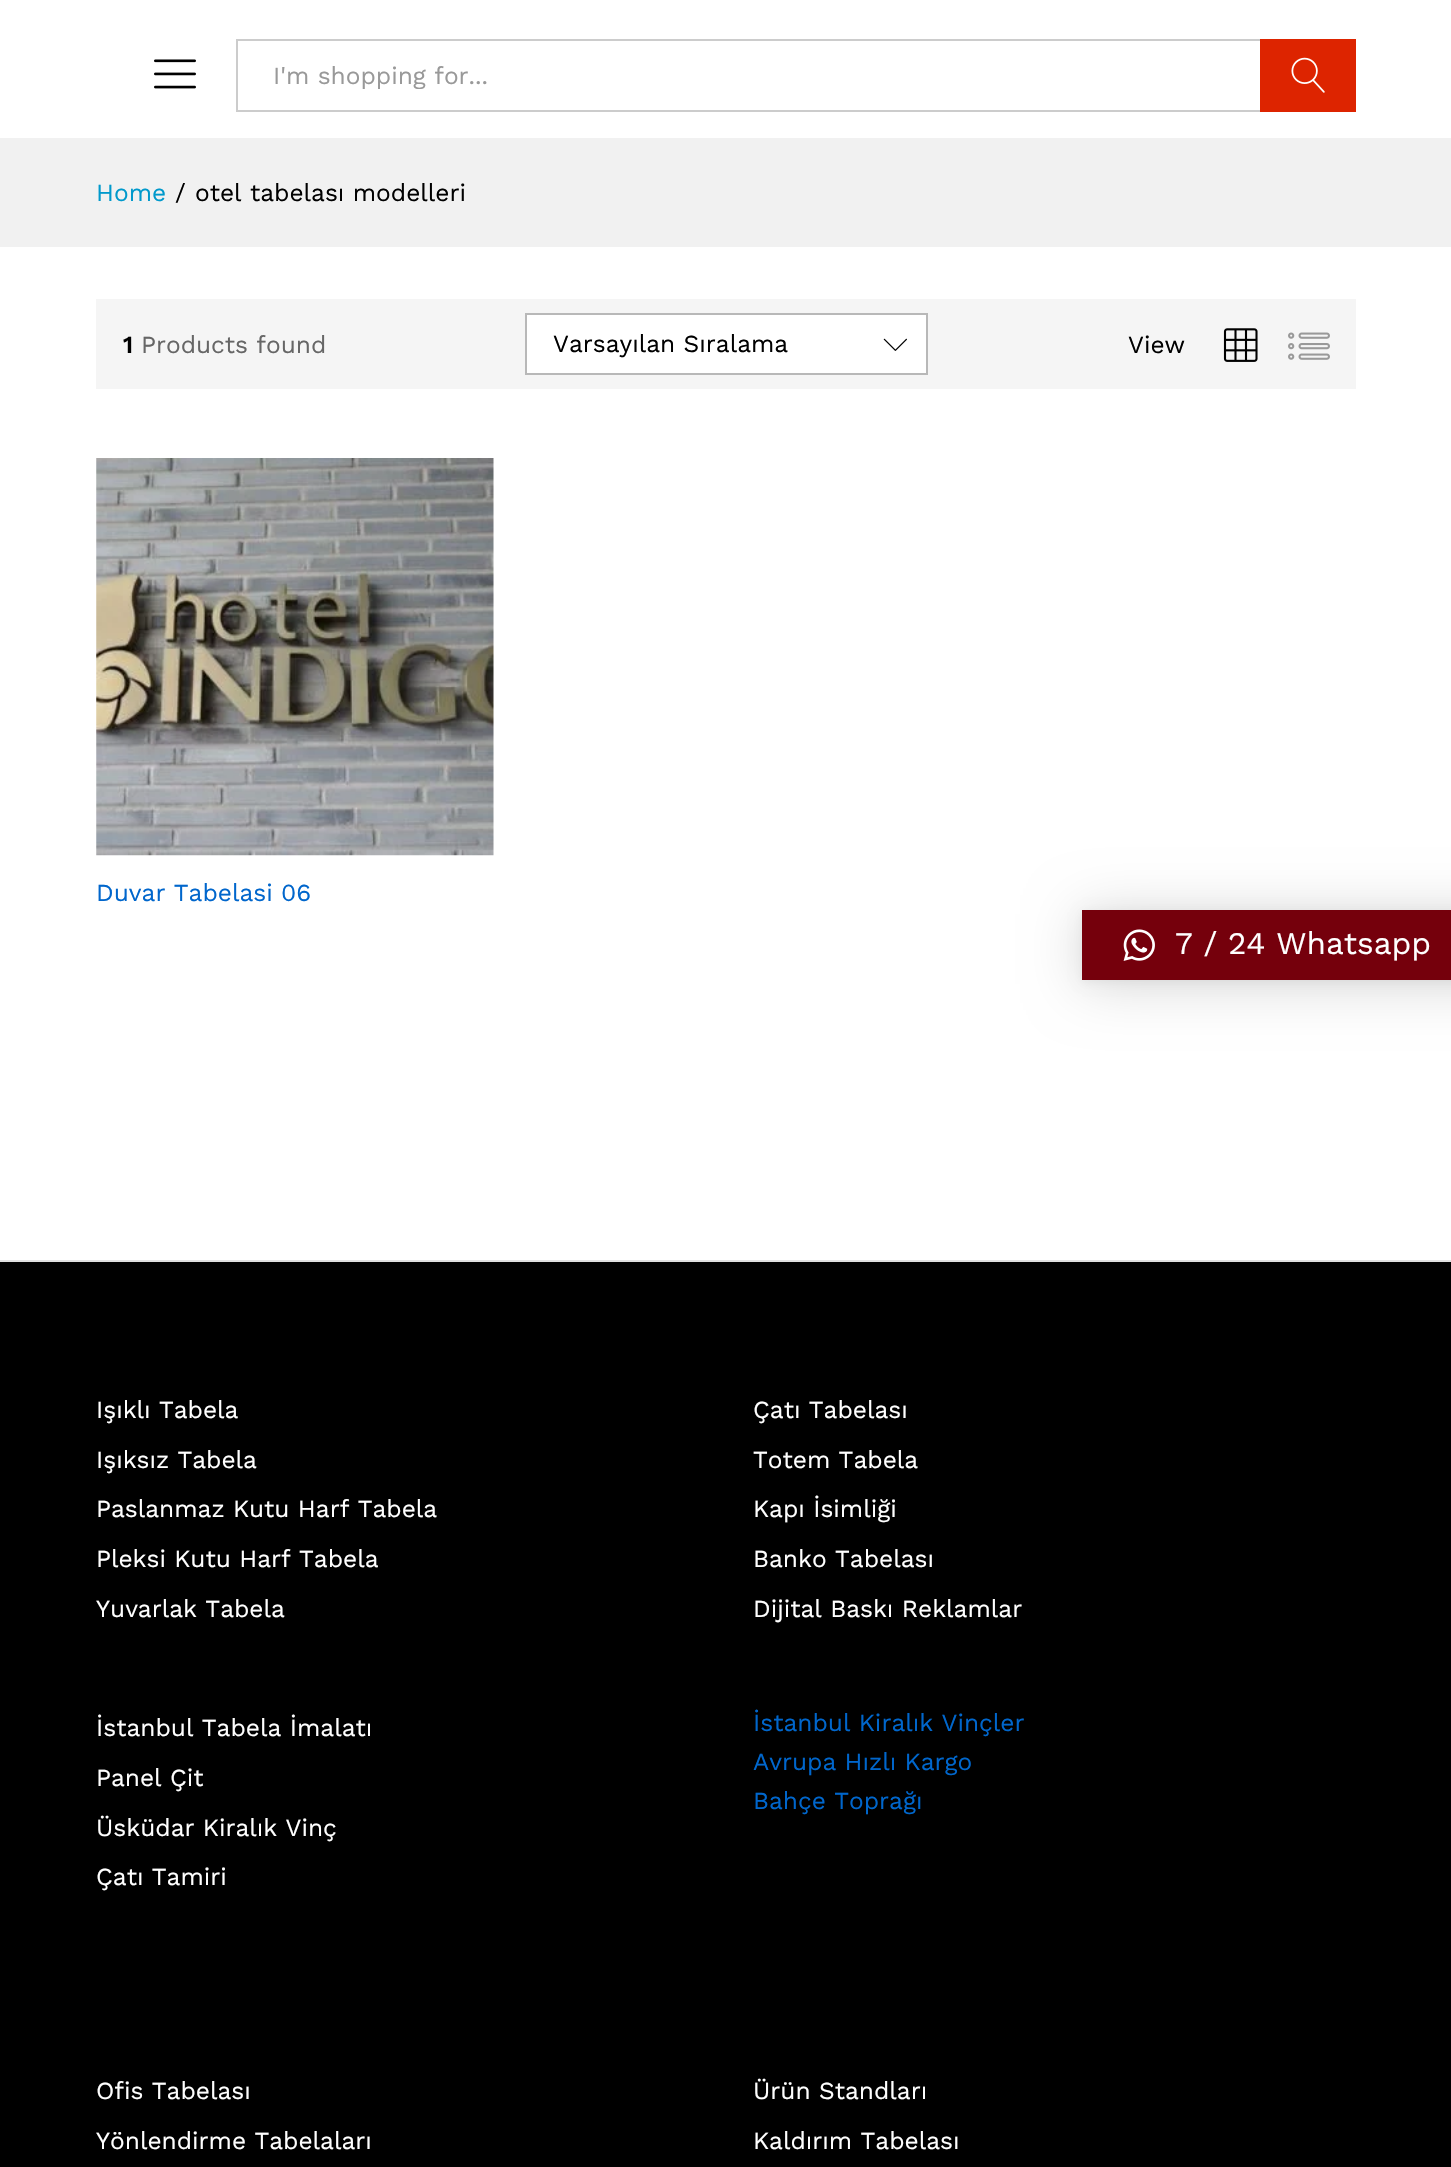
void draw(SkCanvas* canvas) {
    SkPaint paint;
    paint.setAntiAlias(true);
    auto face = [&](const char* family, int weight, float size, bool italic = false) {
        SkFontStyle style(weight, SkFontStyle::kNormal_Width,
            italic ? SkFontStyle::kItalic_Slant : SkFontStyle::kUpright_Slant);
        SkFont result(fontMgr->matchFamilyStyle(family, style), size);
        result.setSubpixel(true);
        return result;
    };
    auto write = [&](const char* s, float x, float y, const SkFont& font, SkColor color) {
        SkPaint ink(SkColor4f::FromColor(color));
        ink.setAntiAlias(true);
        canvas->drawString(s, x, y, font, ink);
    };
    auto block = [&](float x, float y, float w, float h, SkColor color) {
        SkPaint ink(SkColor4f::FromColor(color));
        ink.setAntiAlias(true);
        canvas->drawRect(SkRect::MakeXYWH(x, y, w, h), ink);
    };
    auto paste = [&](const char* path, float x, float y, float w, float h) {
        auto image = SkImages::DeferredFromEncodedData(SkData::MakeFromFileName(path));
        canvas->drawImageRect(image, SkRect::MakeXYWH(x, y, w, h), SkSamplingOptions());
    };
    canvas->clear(SK_ColorWHITE);
    paste("pic1.png", 154, 59, 42, 30);
    block(236, 39, 1024, 2, SkColorSetRGB(204, 204, 204));
    block(236, 110, 1024, 2, SkColorSetRGB(204, 204, 204));
    block(236, 39, 2, 73, SkColorSetRGB(204, 204, 204));
    canvas->save();
    canvas->clipRect(SkRect::MakeXYWH(273, 61, 952, 28));
    auto kFont1 = face("Work Sans", 400, 24.5f);
    write("I'm shopping for...", 273, 84, kFont1, SkColorSetRGB(153, 153, 153));
    canvas->restore();
    block(1260, 39, 96, 73, SkColorSetRGB(221, 36, 0));
    paste("pic2.png", 1291, 57, 34, 36);
    block(0, 138, 1451, 109, SkColorSetRGB(241, 241, 241));
    write("Home", 96, 201, kFont1, SkColorSetRGB(0, 153, 204));
    write("/", 175, 201, kFont1, SK_ColorBLACK);
    write("otel tabelası modelleri", 195, 201, kFont1, SK_ColorBLACK);
    block(96, 299, 1260, 90, SkColorSetRGB(245, 245, 245));
    auto kFont2 = face("Work Sans", 600, 24.5f);
    write("1", 123, 353, kFont2, SK_ColorBLACK);
    write("Products found", 141, 353, kFont1, SkColorSetRGB(102, 102, 102));
    paint.setColor(SK_ColorWHITE);
    canvas->drawRect(SkRect::MakeXYWH(526, 314, 401, 60), paint);
    paint.setStyle(SkPaint::kStroke_Style);
    paint.setStrokeWidth(2);
    paint.setColor(SkColorSetRGB(184, 184, 184));
    canvas->drawRect(SkRect::MakeXYWH(526, 314, 401, 60), paint);
    write("Varsayılan Sıralama", 553, 352, kFont1, SK_ColorBLACK);
    paste("pic3.png", 883, 338, 24, 13);
    write("View", 1128, 353, kFont1, SK_ColorBLACK);
    paste("pic4.png", 1223, 328, 35, 34);
    paste("pic5.png", 1288, 332, 42, 28);
    paste("pic6.png", 96, 458, 398, 398);
    write("Duvar Tabelasi 06", 96, 901, kFont1, SkColorSetRGB(0, 102, 204));
    block(0, 1260, 1451, 2, SkColorSetRGB(225, 225, 225));
    block(0, 1262, 1451, 905, SK_ColorBLACK);
    write("Işıklı Tabela", 96, 1418, kFont1, SK_ColorWHITE);
    write("Işıksız Tabela", 96, 1468, kFont1, SK_ColorWHITE);
    write("Paslanmaz Kutu Harf Tabela", 96, 1517, kFont1, SK_ColorWHITE);
    write("Pleksi Kutu Harf Tabela", 96, 1567, kFont1, SK_ColorWHITE);
    write("Yuvarlak Tabela", 96, 1617, kFont1, SK_ColorWHITE);
    write("İstanbul Tabela İmalatı", 96, 1736, kFont1, SK_ColorWHITE);
    write("Panel Çit", 96, 1786, kFont1, SK_ColorWHITE);
    write("Üsküdar Kiralık Vinç", 96, 1836, kFont1, SK_ColorWHITE);
    write("Çatı Tamiri", 96, 1885, kFont1, SK_ColorWHITE);
    write("Çatı Tabelası", 753, 1418, kFont1, SK_ColorWHITE);
    write("Totem Tabela", 753, 1468, kFont1, SK_ColorWHITE);
    write("Kapı İsimliği", 753, 1517, kFont1, SK_ColorWHITE);
    write("Banko Tabelası", 753, 1567, kFont1, SK_ColorWHITE);
    write("Dijital Baskı Reklamlar", 753, 1617, kFont1, SK_ColorWHITE);
    write("İstanbul Kiralık Vinçler", 753, 1731, kFont1, SkColorSetRGB(0, 102, 204));
    write("Avrupa Hızlı Kargo", 753, 1770, kFont1, SkColorSetRGB(0, 102, 204));
    write("Bahçe Toprağı", 753, 1809, kFont1, SkColorSetRGB(0, 102, 204));
    write("Ofis Tabelası", 96, 2099, kFont1, SK_ColorWHITE);
    write("Yönlendirme Tabelaları", 96, 2149, kFont1, SK_ColorWHITE);
    write("Ürün Standları", 753, 2099, kFont1, SK_ColorWHITE);
    write("Kaldırım Tabelası", 753, 2149, kFont1, SK_ColorWHITE);
    paint.setStyle(SkPaint::kFill_Style);
    paint.setColor(SkColorSetARGB(41, 0, 0, 0));
    paint.setMaskFilter(SkMaskFilter::MakeBlur(kNormal_SkBlurStyle, 28));
    canvas->drawRect(SkRect::MakeXYWH(1082, 914, 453, 70), paint);
    paint.setMaskFilter(nullptr);
    paint.setColor(SkColorSetARGB(15, 0, 0, 0));
    paint.setMaskFilter(SkMaskFilter::MakeBlur(kNormal_SkBlurStyle, 5));
    canvas->drawRect(SkRect::MakeXYWH(1082, 912, 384, 70), paint);
    paint.setMaskFilter(nullptr);
    block(1082, 910, 369, 70, SkColorSetRGB(117, 0, 12));
    paste("pic7.png", 1123, 929, 32, 32);
    auto kFont3 = face("Work Sans", 400, 31.5f);
    write("7 / 24 Whatsapp", 1175, 954, kFont3, SK_ColorWHITE);
}
